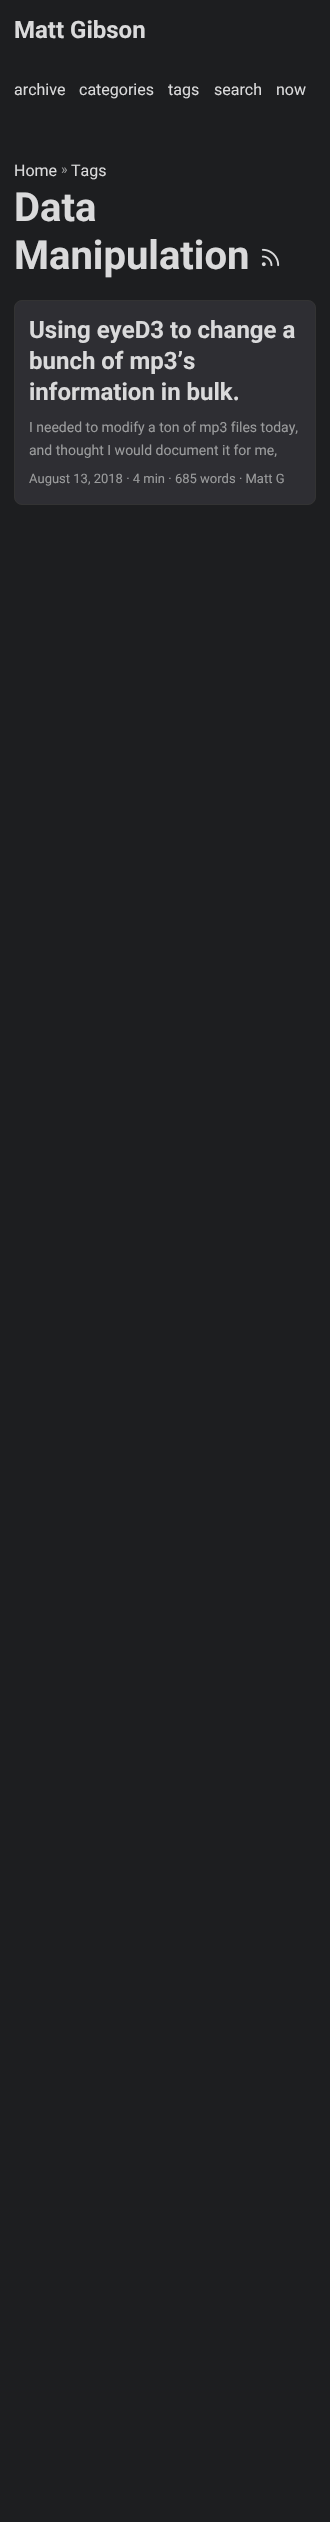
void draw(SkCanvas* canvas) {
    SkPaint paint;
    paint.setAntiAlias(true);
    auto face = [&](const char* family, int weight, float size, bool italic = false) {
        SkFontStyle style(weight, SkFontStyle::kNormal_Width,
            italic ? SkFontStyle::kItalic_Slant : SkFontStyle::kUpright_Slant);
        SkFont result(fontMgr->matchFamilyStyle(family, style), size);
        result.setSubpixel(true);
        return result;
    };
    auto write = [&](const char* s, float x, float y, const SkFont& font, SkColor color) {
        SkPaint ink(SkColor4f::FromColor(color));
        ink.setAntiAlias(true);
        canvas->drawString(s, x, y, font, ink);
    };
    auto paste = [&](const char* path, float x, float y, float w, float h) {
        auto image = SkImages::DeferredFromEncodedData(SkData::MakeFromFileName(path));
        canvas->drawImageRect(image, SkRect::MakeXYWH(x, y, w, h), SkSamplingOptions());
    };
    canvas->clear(SkColorSetRGB(29, 30, 32));
    auto kFont1 = face("Roboto", 700, 24);
    write("Matt Gibson", 14, 38, kFont1, SkColorSetRGB(218, 218, 219));
    auto kFont2 = face("Roboto", 400, 16);
    write("archive", 14, 95, kFont2, SkColorSetRGB(218, 218, 219));
    write("categories", 79, 95, kFont2, SkColorSetRGB(218, 218, 219));
    write("tags", 168, 95, kFont2, SkColorSetRGB(218, 218, 219));
    write("search", 214, 95, kFont2, SkColorSetRGB(218, 218, 219));
    write("now", 276, 95, kFont2, SkColorSetRGB(218, 218, 219));
    write("Home", 14, 176, kFont2, SkColorSetRGB(218, 218, 219));
    auto kFont3 = face("Roboto", 400, 14);
    write("»", 61, 174, kFont3, SkColorSetRGB(155, 156, 157));
    write("Tags", 71, 176, kFont2, SkColorSetRGB(218, 218, 219));
    auto kFont4 = face("Roboto", 700, 40);
    write("Data", 14, 221, kFont4, SkColorSetRGB(218, 218, 219));
    write("Manipulation", 14, 269, kFont4, SkColorSetRGB(218, 218, 219));
    paste("pic1.png", 261, 248, 19, 19);
    paint.setColor(SkColorSetRGB(46, 46, 51));
    canvas->drawRoundRect(SkRect::MakeXYWH(14.5f, 300.5f, 301, 204), 7.5f, 7.5f, paint);
    paint.setStyle(SkPaint::kStroke_Style);
    paint.setStrokeWidth(1);
    paint.setColor(SkColorSetRGB(51, 51, 51));
    canvas->drawRoundRect(SkRect::MakeXYWH(14.5f, 300.5f, 301, 204), 7.5f, 7.5f, paint);
    write("Using eyeD3 to change a", 29, 338, kFont1, SkColorSetRGB(218, 218, 219));
    write("bunch of mp3’s", 29, 369, kFont1, SkColorSetRGB(218, 218, 219));
    write("information in bulk.", 29, 400, kFont1, SkColorSetRGB(218, 218, 219));
    write("I needed to modify a ton of mp3 files today,", 29, 432, kFont3, SkColorSetRGB(155, 156, 157));
    write("and thought I would document it for me,", 29, 455, kFont3, SkColorSetRGB(155, 156, 157));
    auto kFont5 = face("Roboto", 400, 13);
    write("August 13, 2018 · 4 min · 685 words · Matt G", 29, 483, kFont5, SkColorSetRGB(155, 156, 157));
}
